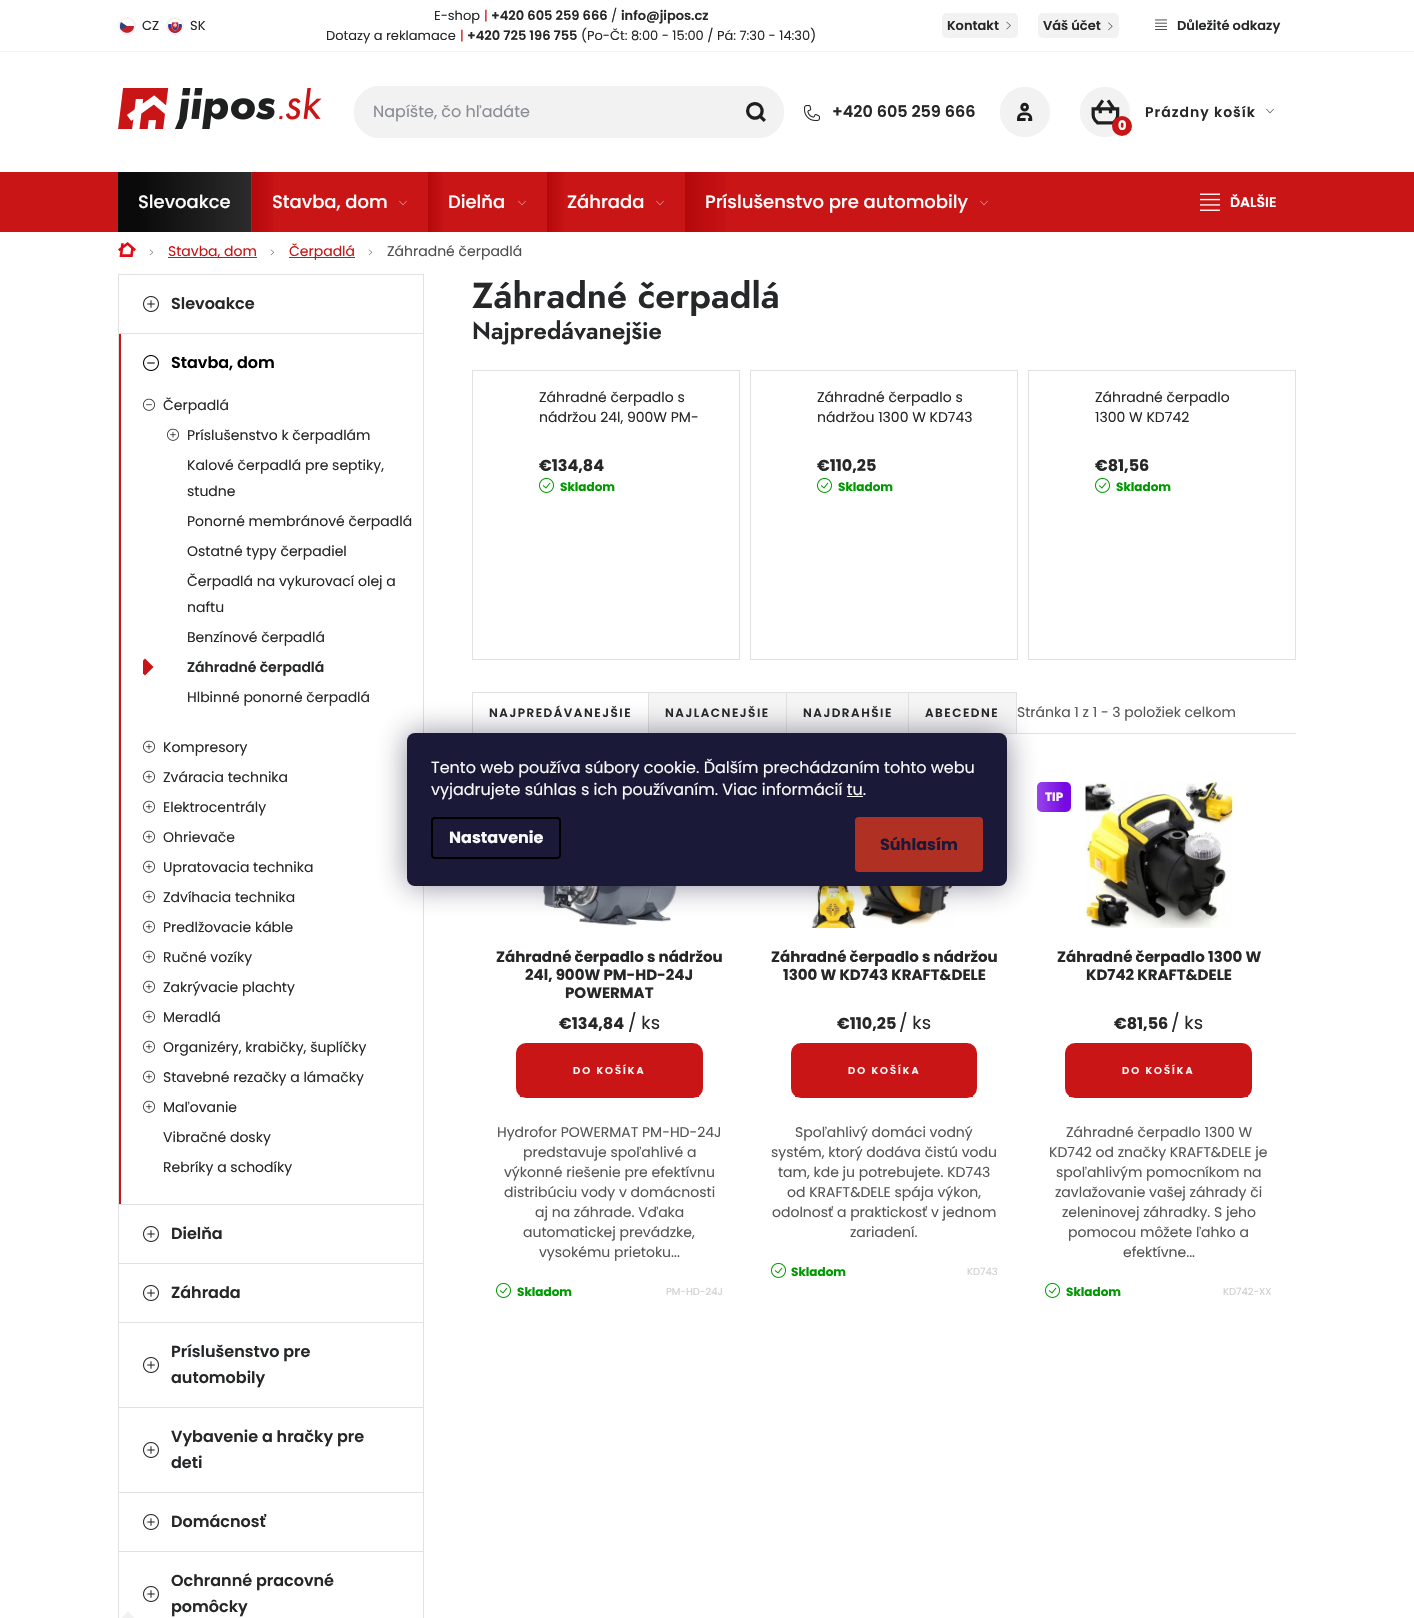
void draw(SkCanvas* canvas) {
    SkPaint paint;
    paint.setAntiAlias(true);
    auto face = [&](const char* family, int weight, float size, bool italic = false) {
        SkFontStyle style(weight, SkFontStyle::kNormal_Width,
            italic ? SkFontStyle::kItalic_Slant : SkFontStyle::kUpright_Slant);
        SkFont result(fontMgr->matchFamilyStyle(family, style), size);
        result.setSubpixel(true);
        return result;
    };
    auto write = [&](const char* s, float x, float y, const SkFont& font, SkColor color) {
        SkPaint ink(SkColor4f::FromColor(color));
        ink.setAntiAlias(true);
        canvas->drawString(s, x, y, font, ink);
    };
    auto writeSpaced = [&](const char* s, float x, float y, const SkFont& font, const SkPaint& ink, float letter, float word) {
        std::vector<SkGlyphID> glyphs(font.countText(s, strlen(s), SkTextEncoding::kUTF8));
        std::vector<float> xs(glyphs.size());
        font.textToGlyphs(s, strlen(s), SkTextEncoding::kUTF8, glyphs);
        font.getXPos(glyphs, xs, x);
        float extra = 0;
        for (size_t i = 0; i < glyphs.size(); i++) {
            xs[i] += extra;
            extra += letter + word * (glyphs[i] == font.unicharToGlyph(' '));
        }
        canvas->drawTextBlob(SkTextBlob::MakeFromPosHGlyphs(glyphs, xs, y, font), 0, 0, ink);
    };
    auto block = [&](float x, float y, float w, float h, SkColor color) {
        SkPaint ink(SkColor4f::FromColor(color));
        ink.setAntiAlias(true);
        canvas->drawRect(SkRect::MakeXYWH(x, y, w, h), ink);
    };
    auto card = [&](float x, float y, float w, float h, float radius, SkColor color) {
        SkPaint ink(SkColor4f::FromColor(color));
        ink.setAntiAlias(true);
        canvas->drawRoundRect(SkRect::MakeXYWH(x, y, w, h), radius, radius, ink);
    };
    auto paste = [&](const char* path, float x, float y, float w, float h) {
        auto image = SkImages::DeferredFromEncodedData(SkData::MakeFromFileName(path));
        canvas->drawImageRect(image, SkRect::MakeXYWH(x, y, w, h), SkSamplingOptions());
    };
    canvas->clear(SK_ColorWHITE);
    block(0, 51, 1414, 1, SkColorSetRGB(245, 245, 245));
    paint.setColor(SkColorSetRGB(242, 242, 242));
    canvas->drawCircle(127, 26, 9, paint);
    paint.setColor(SkColorSetRGB(196, 33, 43));
    canvas->drawPath(SkPathBuilder().moveTo(134, 26).lineTo(120, 26).cubicTo(120, 35, 134, 35, 134, 26).close().detach(), paint);
    paint.setColor(SK_ColorWHITE);
    canvas->drawPath(SkPathBuilder().moveTo(127, 19).cubicTo(123, 19, 120, 22, 120, 26).lineTo(134, 26).cubicTo(134, 22, 131, 19, 127, 19).close().detach(), paint);
    paint.setColor(SkColorSetRGB(42, 70, 125));
    canvas->drawPath(SkPathBuilder().moveTo(121, 22).cubicTo(119.5f, 24.5f, 119.5f, 27.5f, 121, 30).lineTo(127, 26).close().detach(), paint);
    auto kFont1 = face("Poppins", 400, 13);
    write("CZ", 142, 30, kFont1, SkColorSetRGB(37, 39, 41));
    paint.setStyle(SkPaint::kStroke_Style);
    paint.setStrokeWidth(1);
    paint.setColor(SkColorSetRGB(225, 225, 226));
    canvas->drawRect(SkRect::MakeXYWH(118.5f, 274.5f, 305, 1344), paint);
    paint.setStyle(SkPaint::kFill_Style);
    paint.setColor(SkColorSetRGB(242, 242, 242));
    canvas->drawPath(SkPathBuilder().moveTo(134, 1618).lineTo(122, 1618).lineTo(128, 1611).close().detach(), paint);
    canvas->drawCircle(175, 26, 9, paint);
    paste("pic1.png", 168, 19, 14, 14);
    write("SK", 190, 30, kFont1, SkColorSetRGB(37, 39, 41));
    write("E-shop", 434, 20, kFont1, SkColorSetRGB(37, 39, 41));
    write("|", 484, 20, kFont1, SkColorSetRGB(201, 21, 22));
    auto kFont2 = face("Poppins", 600, 13);
    write("+420 605 259 666", 491, 20, kFont2, SkColorSetRGB(37, 39, 41));
    write("/", 611, 20, kFont1, SkColorSetRGB(37, 39, 41));
    write("info@jipos.cz", 621, 20, kFont2, SkColorSetRGB(37, 39, 41));
    write("Dotazy a reklamace", 326, 40, kFont1, SkColorSetRGB(37, 39, 41));
    write("|", 460, 40, kFont1, SkColorSetRGB(201, 21, 22));
    write("+420 725 196 755", 467, 40, kFont2, SkColorSetRGB(37, 39, 41));
    write("(Po-Čt: 8:00 - 15:00 / Pá: 7:30 - 14:30)", 581, 40, kFont1, SkColorSetRGB(37, 39, 41));
    card(942, 13, 76, 25, 5, SkColorSetRGB(242, 242, 242));
    write("Kontakt", 947, 30, kFont2, SkColorSetRGB(37, 39, 41));
    paste("pic2.png", 1006, 21, 5, 9);
    card(1038, 13, 81, 25, 5, SkColorSetRGB(242, 242, 242));
    write("Váš účet", 1043, 30, kFont2, SkColorSetRGB(37, 39, 41));
    paste("pic3.png", 1108, 22, 5, 9);
    paste("pic4.png", 1155, 19, 12, 11);
    write("Důležité odkazy", 1177, 30, kFont2, SkColorSetRGB(37, 39, 41));
    paste("pic5.png", 118, 88, 204, 41);
    canvas->drawRoundRect(SkRect::MakeXYWH(354.5f, 86.5f, 429, 51), 24.5f, 24.5f, paint);
    paint.setStyle(SkPaint::kStroke_Style);
    canvas->drawRoundRect(SkRect::MakeXYWH(354.5f, 86.5f, 429, 51), 24.5f, 24.5f, paint);
    auto kFont3 = face("Poppins", 400, 16);
    write("Napíšte, čo hľadáte", 373, 117, kFont3, SkColorSetRGB(136, 140, 146));
    paste("pic6.png", 746, 102, 20, 20);
    paste("pic7.png", 804, 105, 16, 16);
    auto kFont4 = face("Poppins", 600, 16);
    write("+420 605 259 666", 832, 117, kFont4, SkColorSetRGB(37, 39, 41));
    paste("pic8.png", 1000, 87, 50, 50);
    paste("pic9.png", 1080, 87, 50, 50);
    auto kFont5 = face("Poppins", 600, 14);
    paint.setStyle(SkPaint::kFill_Style);
    paint.setColor(SkColorSetRGB(37, 39, 41));
    writeSpaced("Prázdny košík", 1145, 117, kFont5, paint, 1, 0);
    paint.setColor(SkColorSetRGB(201, 21, 22));
    canvas->drawCircle(1122, 126, 10, paint);
    auto kFont6 = face("Poppins", 700, 13);
    write("0", 1118, 130, kFont6, SK_ColorWHITE);
    paste("pic10.png", 1266, 108, 8, 6);
    block(0, 172, 1414, 60, SkColorSetRGB(201, 21, 22));
    {
        const SkColor colors[] = {SkColorSetRGB(44, 43, 43), SkColorSetRGB(10, 10, 10), SkColorSetRGB(10, 10, 10)};
        const float stops[] = {0, 0.85f, 1};
        const SkPoint ends[] = {{251, 202}, {118, 202}};
        paint.setShader(SkGradientShader::MakeLinear(ends, colors, stops, 3, SkTileMode::kClamp));
        paint.setAlpha(255);
    }
    canvas->drawRect(SkRect::MakeXYWH(118, 172, 133, 60), paint);
    auto kFont7 = face("Poppins", 500, 18);
    write("Slevoakce", 138, 208, kFont7, SK_ColorWHITE);
    {
        const SkColor colors[] = {SkColorSetRGB(202, 21, 23), SkColorSetRGB(202, 21, 23), SkColorSetRGB(180, 8, 10)};
        const float stops[] = {0, 0.85f, 1};
        const SkPoint ends[] = {{427, 202}, {252, 202}};
        paint.setShader(SkGradientShader::MakeLinear(ends, colors, stops, 3, SkTileMode::kClamp));
        paint.setAlpha(255);
    }
    canvas->drawRect(SkRect::MakeXYWH(252, 172, 22, 60), paint);
    write("Stavba, dom", 272, 208, kFont7, SK_ColorWHITE);
    paste("pic11.png", 399, 200, 8, 6);
    {
        const SkColor colors[] = {SkColorSetRGB(202, 21, 23), SkColorSetRGB(202, 21, 23), SkColorSetRGB(180, 8, 10)};
        const float stops[] = {0, 0.85f, 1};
        const SkPoint ends[] = {{546, 202}, {428, 202}};
        paint.setShader(SkGradientShader::MakeLinear(ends, colors, stops, 3, SkTileMode::kClamp));
        paint.setAlpha(255);
    }
    canvas->drawRect(SkRect::MakeXYWH(428, 172, 15, 60), paint);
    write("Dielňa", 448, 208, kFont7, SK_ColorWHITE);
    paste("pic11.png", 518, 200, 8, 6);
    {
        const SkColor colors[] = {SkColorSetRGB(202, 21, 23), SkColorSetRGB(202, 21, 23), SkColorSetRGB(180, 8, 10)};
        const float stops[] = {0, 0.85f, 1};
        const SkPoint ends[] = {{684, 202}, {547, 202}};
        paint.setShader(SkGradientShader::MakeLinear(ends, colors, stops, 3, SkTileMode::kClamp));
        paint.setAlpha(255);
    }
    canvas->drawRect(SkRect::MakeXYWH(547, 172, 17, 60), paint);
    write("Záhrada", 567, 208, kFont7, SK_ColorWHITE);
    paste("pic11.png", 656, 200, 8, 6);
    {
        const SkColor colors[] = {SkColorSetRGB(202, 21, 23), SkColorSetRGB(202, 21, 23), SkColorSetRGB(180, 8, 10)};
        const float stops[] = {0, 0.85f, 1};
        const SkPoint ends[] = {{1008, 202}, {685, 202}};
        paint.setShader(SkGradientShader::MakeLinear(ends, colors, stops, 3, SkTileMode::kClamp));
        paint.setAlpha(255);
    }
    canvas->drawRect(SkRect::MakeXYWH(685, 172, 41, 60), paint);
    write("Príslušenstvo pre automobily", 705, 208, kFont7, SK_ColorWHITE);
    paste("pic11.png", 980, 200, 8, 6);
    paste("pic12.png", 1200, 193, 20, 18);
    write("ĎALŠIE", 1230, 207, kFont5, SK_ColorWHITE);
    paste("pic13.png", 118, 242, 18, 15);
    paste("pic14.png", 149, 249, 4, 7);
    block(168, 257, 89, 1, SkColorSetRGB(201, 21, 22));
    auto kFont8 = face("Poppins", 400, 14);
    write("Stavba, dom", 168, 256, kFont8, SkColorSetRGB(201, 21, 22));
    paste("pic14.png", 270, 249, 4, 7);
    block(289, 257, 66, 1, SkColorSetRGB(201, 21, 22));
    write("Čerpadlá", 289, 256, kFont8, SkColorSetRGB(201, 21, 22));
    paste("pic14.png", 368, 249, 4, 7);
    write("Záhradné čerpadlá", 387, 256, kFont8, SkColorSetRGB(79, 79, 79));
    block(119, 333, 304, 1, SkColorSetRGB(225, 225, 226));
    paste("pic15.png", 143, 296, 16, 16);
    write("Slevoakce", 171, 309, kFont4, SkColorSetRGB(37, 39, 41));
    block(119, 1204, 304, 1, SkColorSetRGB(225, 225, 226));
    block(119, 334, 2, 870, SkColorSetRGB(201, 21, 22));
    paste("pic16.png", 143, 355, 16, 16);
    write("Stavba, dom", 171, 368, kFont4, SK_ColorBLACK);
    paste("pic17.png", 143, 398, 12, 13);
    write("Čerpadlá", 163, 410, kFont8, SkColorSetRGB(37, 39, 41));
    paste("pic18.png", 167, 428, 12, 13);
    write("Príslušenstvo k čerpadlám", 187, 440, kFont8, SkColorSetRGB(37, 39, 41));
    write("Kalové čerpadlá pre septiky,", 187, 470, kFont8, SkColorSetRGB(37, 39, 41));
    write("studne", 187, 496, kFont8, SkColorSetRGB(37, 39, 41));
    write("Ponorné membránové čerpadlá", 187, 526, kFont8, SkColorSetRGB(37, 39, 41));
    write("Ostatné typy čerpadiel", 187, 556, kFont8, SkColorSetRGB(37, 39, 41));
    write("Čerpadlá na vykurovací olej a", 187, 586, kFont8, SkColorSetRGB(37, 39, 41));
    write("naftu", 187, 612, kFont8, SkColorSetRGB(37, 39, 41));
    write("Benzínové čerpadlá", 187, 642, kFont8, SkColorSetRGB(37, 39, 41));
    canvas->save();
    canvas->clipRect(SkRect::MakeXYWH(143, 654, 280, 26));
    paint.setShader(nullptr);
    paint.setColor(SkColorSetRGB(201, 21, 22));
    canvas->drawPath(SkPathBuilder().moveTo(145, 658.5f).lineTo(153.5f, 667).lineTo(145, 675.5f).lineTo(136.5f, 667).close().detach(), paint);
    canvas->restore();
    write("Záhradné čerpadlá", 187, 672, kFont5, SkColorSetRGB(37, 39, 41));
    write("Hlbinné ponorné čerpadlá", 187, 702, kFont8, SkColorSetRGB(37, 39, 41));
    paste("pic18.png", 143, 740, 12, 13);
    write("Kompresory", 163, 752, kFont8, SkColorSetRGB(37, 39, 41));
    paste("pic18.png", 143, 770, 12, 13);
    write("Zváracia technika", 163, 782, kFont8, SkColorSetRGB(37, 39, 41));
    paste("pic18.png", 143, 800, 12, 13);
    write("Elektrocentrály", 163, 812, kFont8, SkColorSetRGB(37, 39, 41));
    paste("pic18.png", 143, 830, 12, 13);
    write("Ohrievače", 163, 842, kFont8, SkColorSetRGB(37, 39, 41));
    paste("pic18.png", 143, 860, 12, 13);
    write("Upratovacia technika", 163, 872, kFont8, SkColorSetRGB(37, 39, 41));
    paste("pic18.png", 143, 890, 12, 13);
    write("Zdvíhacia technika", 163, 902, kFont8, SkColorSetRGB(37, 39, 41));
    paste("pic18.png", 143, 920, 12, 13);
    write("Predlžovacie káble", 163, 932, kFont8, SkColorSetRGB(37, 39, 41));
    paste("pic18.png", 143, 950, 12, 13);
    write("Ručné vozíky", 163, 962, kFont8, SkColorSetRGB(37, 39, 41));
    paste("pic18.png", 143, 980, 12, 13);
    write("Zakrývacie plachty", 163, 992, kFont8, SkColorSetRGB(37, 39, 41));
    paste("pic18.png", 143, 1010, 12, 13);
    write("Meradlá", 163, 1022, kFont8, SkColorSetRGB(37, 39, 41));
    paste("pic18.png", 143, 1040, 12, 13);
    write("Organizéry, krabičky, šuplíčky", 163, 1052, kFont8, SkColorSetRGB(37, 39, 41));
    paste("pic18.png", 143, 1070, 12, 13);
    write("Stavebné rezačky a lámačky", 163, 1082, kFont8, SkColorSetRGB(37, 39, 41));
    paste("pic18.png", 143, 1100, 12, 13);
    write("Maľovanie", 163, 1112, kFont8, SkColorSetRGB(37, 39, 41));
    write("Vibračné dosky", 163, 1142, kFont8, SkColorSetRGB(37, 39, 41));
    write("Rebríky a schodíky", 163, 1172, kFont8, SkColorSetRGB(37, 39, 41));
    block(119, 1263, 304, 1, SkColorSetRGB(225, 225, 226));
    paste("pic15.png", 143, 1226, 16, 16);
    write("Dielňa", 171, 1239, kFont4, SkColorSetRGB(37, 39, 41));
    block(119, 1322, 304, 1, SkColorSetRGB(225, 225, 226));
    paste("pic15.png", 143, 1285, 16, 16);
    write("Záhrada", 171, 1298, kFont4, SkColorSetRGB(37, 39, 41));
    block(119, 1407, 304, 1, SkColorSetRGB(225, 225, 226));
    write("Príslušenstvo pre", 171, 1357, kFont4, SkColorSetRGB(37, 39, 41));
    paste("pic15.png", 143, 1357, 16, 16);
    write("automobily", 171, 1383, kFont4, SkColorSetRGB(37, 39, 41));
    block(119, 1492, 304, 1, SkColorSetRGB(225, 225, 226));
    write("Vybavenie a hračky pre", 171, 1442, kFont4, SkColorSetRGB(37, 39, 41));
    paste("pic15.png", 143, 1442, 16, 16);
    write("deti", 171, 1468, kFont4, SkColorSetRGB(37, 39, 41));
    block(119, 1551, 304, 1, SkColorSetRGB(225, 225, 226));
    paste("pic15.png", 143, 1514, 16, 16);
    write("Domácnosť", 171, 1527, kFont4, SkColorSetRGB(37, 39, 41));
    write("Ochranné pracovné", 171, 1586, kFont4, SkColorSetRGB(37, 39, 41));
    paste("pic15.png", 143, 1586, 16, 16);
    write("pomôcky", 171, 1612, kFont4, SkColorSetRGB(37, 39, 41));
    auto kFont9 = face("Jost", 600, 36);
    write("Záhradné čerpadlá", 472, 308, kFont9, SkColorSetRGB(37, 39, 41));
    auto kFont10 = face("Jost", 600, 24);
    write("Najpredávanejšie", 472, 339, kFont10, SkColorSetRGB(37, 39, 41));
    paint.setStyle(SkPaint::kStroke_Style);
    paint.setColor(SkColorSetRGB(225, 225, 226));
    canvas->drawRect(SkRect::MakeXYWH(472.5f, 370.5f, 267, 289), paint);
    write("Záhradné čerpadlo s", 539, 402, kFont8, SkColorSetRGB(37, 39, 41));
    write("nádržou 24l, 900W PM-", 539, 422, kFont8, SkColorSetRGB(37, 39, 41));
    auto kFont11 = face("Poppins", 700, 16);
    write("€134,84", 539, 471, kFont11, SkColorSetRGB(37, 39, 41));
    paste("pic19.png", 539, 477, 15, 16);
    auto kFont12 = face("Poppins", 700, 12);
    write("Skladom", 560, 491, kFont12, SkColorSetRGB(0, 153, 1));
    canvas->drawRect(SkRect::MakeXYWH(750.5f, 370.5f, 267, 289), paint);
    write("Záhradné čerpadlo s", 817, 402, kFont8, SkColorSetRGB(37, 39, 41));
    write("nádržou 1300 W KD743", 817, 422, kFont8, SkColorSetRGB(37, 39, 41));
    write("€110,25", 817, 471, kFont11, SkColorSetRGB(37, 39, 41));
    paste("pic19.png", 817, 477, 15, 16);
    write("Skladom", 838, 491, kFont12, SkColorSetRGB(0, 153, 1));
    canvas->drawRect(SkRect::MakeXYWH(1028.5f, 370.5f, 267, 289), paint);
    write("Záhradné čerpadlo", 1095, 402, kFont8, SkColorSetRGB(37, 39, 41));
    write("1300 W KD742", 1095, 422, kFont8, SkColorSetRGB(37, 39, 41));
    write("€81,56", 1095, 471, kFont11, SkColorSetRGB(37, 39, 41));
    paste("pic19.png", 1095, 477, 15, 16);
    write("Skladom", 1116, 491, kFont12, SkColorSetRGB(0, 153, 1));
    block(1017, 733, 279, 1, SkColorSetRGB(225, 225, 226));
    block(472, 692, 1, 42, SkColorSetRGB(225, 225, 226));
    block(473, 692, 544, 1, SkColorSetRGB(225, 225, 226));
    block(648, 692, 1, 42, SkColorSetRGB(225, 225, 226));
    auto kFont13 = face("Poppins", 600, 12);
    paint.setStyle(SkPaint::kFill_Style);
    paint.setColor(SkColorSetRGB(37, 39, 41));
    writeSpaced("NAJPREDÁVANEJŠIE", 489, 717, kFont13, paint, 1.5f, 0);
    block(649, 693, 137, 40, SkColorSetRGB(245, 245, 245));
    block(786, 692, 1, 42, SkColorSetRGB(225, 225, 226));
    writeSpaced("NAJLACNEJŠIE", 665, 717, kFont13, paint, 1.5f, 0);
    block(787, 693, 121, 40, SkColorSetRGB(245, 245, 245));
    block(908, 692, 1, 42, SkColorSetRGB(225, 225, 226));
    writeSpaced("NAJDRAHŠIE", 803, 717, kFont13, paint, 1.5f, 0);
    block(909, 693, 107, 40, SkColorSetRGB(245, 245, 245));
    block(1016, 692, 1, 42, SkColorSetRGB(225, 225, 226));
    block(999, 733, 18, 1, SkColorSetRGB(225, 225, 226));
    writeSpaced("ABECEDNE", 925, 717, kFont13, paint, 1.5f, 0);
    write("Stránka 1 z 1 - 3 položiek celkom", 1017, 717, kFont8, SkColorSetRGB(85, 86, 88));
    paste("pic20.png", 543, 886, 134, 40);
    auto kFont14 = face("Poppins", 700, 15);
    write("Záhradné čerpadlo s nádržou", 496, 962, kFont14, SkColorSetRGB(37, 39, 41));
    write("24l, 900W PM-HD-24J", 525, 980, kFont14, SkColorSetRGB(37, 39, 41));
    write("POWERMAT", 565, 998, kFont14, SkColorSetRGB(37, 39, 41));
    write("€134,84", 559, 1029, kFont11, SkColorSetRGB(37, 39, 41));
    auto kFont15 = face("Poppins", 400, 18);
    write("/ ks", 628, 1029, kFont15, SkColorSetRGB(37, 39, 41));
    card(516, 1043, 187, 55, 10, SkColorSetRGB(202, 21, 23));
    block(520, 1096, 179, 1, SkColorSetRGB(201, 21, 22));
    auto kFont16 = face("Poppins", 600, 10);
    paint.setColor(SK_ColorWHITE);
    writeSpaced("DO KOŠÍKA", 573, 1074, kFont16, paint, 2, 0);
    write("Hydrofor POWERMAT PM-HD-24J", 497, 1137, kFont8, SkColorSetRGB(85, 86, 88));
    write("predstavuje spoľahlivé a", 523, 1157, kFont8, SkColorSetRGB(85, 86, 88));
    write("výkonné riešenie pre efektívnu", 504, 1177, kFont8, SkColorSetRGB(85, 86, 88));
    write("distribúciu vody v domácnosti", 504, 1197, kFont8, SkColorSetRGB(85, 86, 88));
    write("aj na záhrade. Vďaka", 535, 1217, kFont8, SkColorSetRGB(85, 86, 88));
    write("automatickej prevádzke,", 523, 1237, kFont8, SkColorSetRGB(85, 86, 88));
    write("vysokému prietoku...", 539, 1257, kFont8, SkColorSetRGB(85, 86, 88));
    paste("pic19.png", 496, 1282, 15, 16);
    write("Skladom", 517, 1296, kFont12, SkColorSetRGB(0, 153, 1));
    auto kFont17 = face("Poppins", 400, 10);
    write("PM-HD-24J", 666, 1295, kFont17, SkColorSetRGB(207, 207, 207));
    paste("pic21.png", 811, 886, 143, 42);
    write("Záhradné čerpadlo s nádržou", 771, 962, kFont14, SkColorSetRGB(37, 39, 41));
    write("1300 W KD743 KRAFT&DELE", 783, 980, kFont14, SkColorSetRGB(37, 39, 41));
    write("€110,25", 837, 1029, kFont11, SkColorSetRGB(37, 39, 41));
    write("/ ks", 899, 1029, kFont15, SkColorSetRGB(37, 39, 41));
    card(791, 1043, 186, 55, 10, SkColorSetRGB(202, 21, 23));
    block(795, 1096, 178, 1, SkColorSetRGB(201, 21, 22));
    writeSpaced("DO KOŠÍKA", 848, 1074, kFont16, paint, 2, 0);
    write("Spoľahlivý domáci vodný", 795, 1137, kFont8, SkColorSetRGB(85, 86, 88));
    write("systém, ktorý dodáva čistú vodu", 771, 1157, kFont8, SkColorSetRGB(85, 86, 88));
    write("tam, kde ju potrebujete. KD743", 778, 1177, kFont8, SkColorSetRGB(85, 86, 88));
    write("od KRAFT&DELE spája výkon,", 787, 1197, kFont8, SkColorSetRGB(85, 86, 88));
    write("odolnosť a praktickosť v jednom", 772, 1217, kFont8, SkColorSetRGB(85, 86, 88));
    write("zariadení.", 850, 1237, kFont8, SkColorSetRGB(85, 86, 88));
    paste("pic19.png", 771, 1262, 15, 16);
    write("Skladom", 791, 1276, kFont12, SkColorSetRGB(0, 153, 1));
    write("KD743", 967, 1275, kFont17, SkColorSetRGB(207, 207, 207));
    card(1037, 782, 34, 30, 5, SkColorSetRGB(119, 10, 227));
    {
        const SkColor colors[] = {SkColorSetARGB(61, 255, 255, 255), SkColorSetARGB(0, 255, 255, 255), SkColorSetARGB(0, 0, 0, 0)};
        const float stops[] = {0, 0.8f, 1};
        const SkPoint ends[] = {{1037, 797}, {1071, 797}};
        paint.setShader(SkGradientShader::MakeLinear(ends, colors, stops, 3, SkTileMode::kClamp));
        paint.setAlpha(255);
    }
    canvas->drawRoundRect(SkRect::MakeXYWH(1037, 782, 34, 30), 5, 5, paint);
    write("TIP", 1045, 801, kFont12, SK_ColorWHITE);
    paste("pic22.png", 1083, 782, 154, 146);
    write("Záhradné čerpadlo 1300 W", 1057, 962, kFont14, SkColorSetRGB(37, 39, 41));
    write("KD742 KRAFT&DELE", 1086, 980, kFont14, SkColorSetRGB(37, 39, 41));
    write("€81,56", 1114, 1029, kFont11, SkColorSetRGB(37, 39, 41));
    write("/ ks", 1171, 1029, kFont15, SkColorSetRGB(37, 39, 41));
    card(1065, 1043, 187, 55, 10, SkColorSetRGB(202, 21, 23));
    block(1069, 1096, 179, 1, SkColorSetRGB(201, 21, 22));
    paint.setShader(nullptr);
    paint.setColor(SK_ColorWHITE);
    writeSpaced("DO KOŠÍKA", 1122, 1074, kFont16, paint, 2, 0);
    write("Záhradné čerpadlo 1300 W", 1066, 1137, kFont8, SkColorSetRGB(85, 86, 88));
    write("KD742 od značky KRAFT&DELE je", 1049, 1157, kFont8, SkColorSetRGB(85, 86, 88));
    write("spoľahlivým pomocníkom na", 1056, 1177, kFont8, SkColorSetRGB(85, 86, 88));
    write("zavlažovanie vašej záhrady či", 1055, 1197, kFont8, SkColorSetRGB(85, 86, 88));
    write("zeleninovej záhradky. S jeho", 1062, 1217, kFont8, SkColorSetRGB(85, 86, 88));
    write("pomocou môžete ľahko a", 1068, 1237, kFont8, SkColorSetRGB(85, 86, 88));
    write("efektívne...", 1123, 1257, kFont8, SkColorSetRGB(85, 86, 88));
    paste("pic19.png", 1045, 1282, 15, 16);
    write("Skladom", 1066, 1296, kFont12, SkColorSetRGB(0, 153, 1));
    write("KD742-XX", 1223, 1295, kFont17, SkColorSetRGB(207, 207, 207));
    paint.setColor(SkColorSetARGB(128, 27, 25, 57));
    paint.setMaskFilter(SkMaskFilter::MakeBlur(kNormal_SkBlurStyle, 15));
    canvas->drawRoundRect(SkRect::MakeXYWH(407, 733, 600, 153), 8, 8, paint);
    paint.setMaskFilter(nullptr);
    card(407, 733, 600, 153, 8, SkColorSetRGB(26, 25, 55));
    write("Tento web používa súbory cookie. Ďalším prechádzaním tohto webu", 431, 773, kFont3, SkColorSetRGB(248, 250, 251));
    write("vyjadrujete súhlas s ich používaním. Viac informácií tu.", 431, 795, kFont3, SkColorSetRGB(248, 250, 251));
    block(847, 796, 16, 1, SkColorSetRGB(248, 250, 251));
    paint.setStyle(SkPaint::kStroke_Style);
    paint.setStrokeWidth(2);
    paint.setColor(SK_ColorBLACK);
    canvas->drawRoundRect(SkRect::MakeXYWH(432, 818, 128, 40), 3, 3, paint);
    write("Nastavenie", 449, 843, kFont11, SkColorSetRGB(248, 250, 251));
    card(855, 817, 128, 55, 4, SkColorSetRGB(177, 48, 36));
    write("Súhlasím", 880, 850, kFont11, SkColorSetRGB(26, 25, 55));
}
